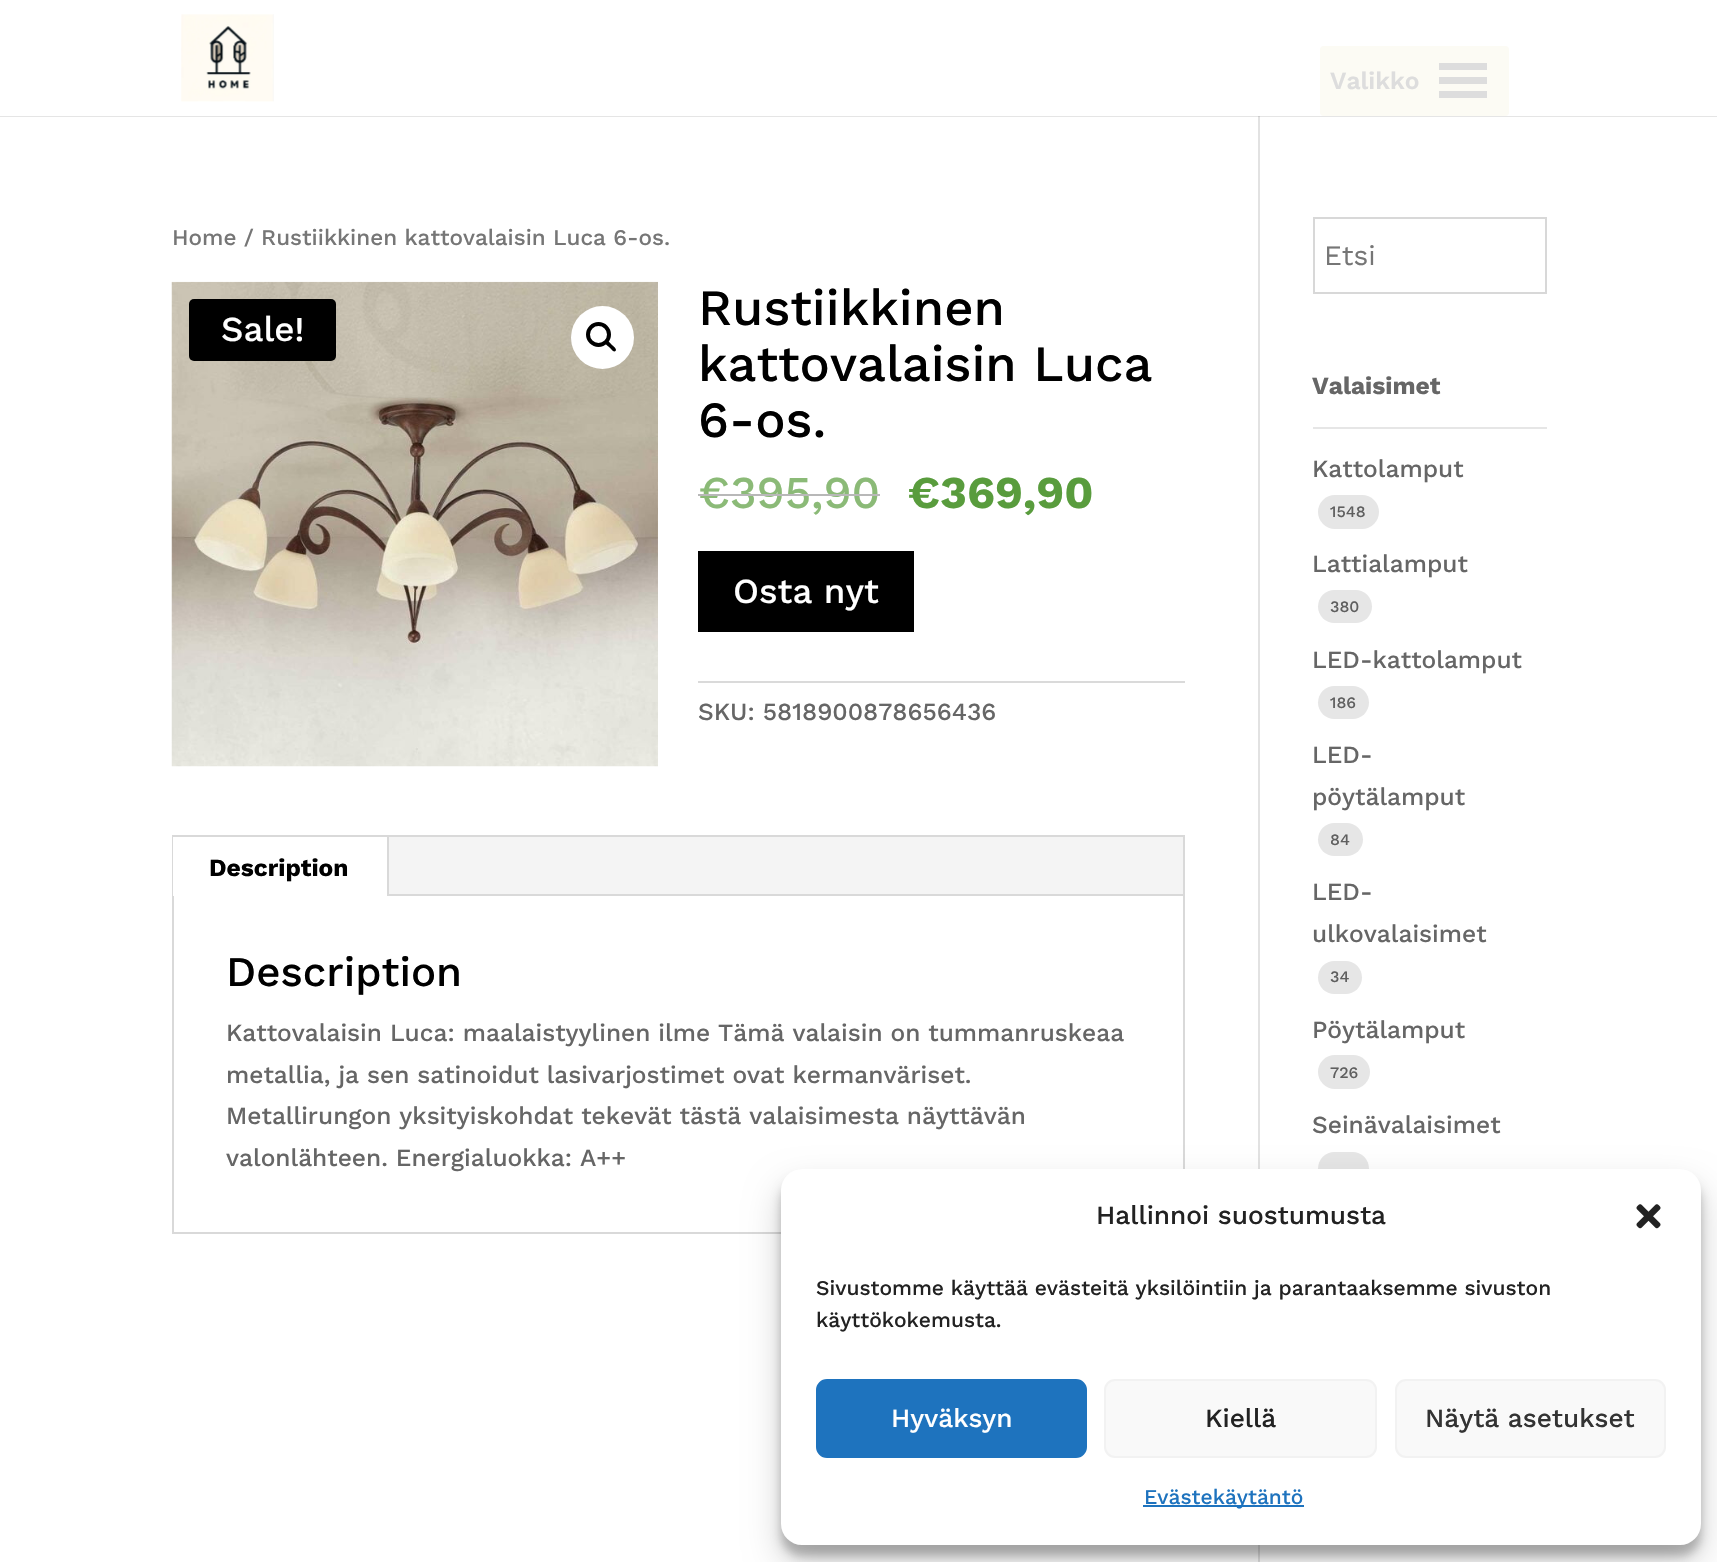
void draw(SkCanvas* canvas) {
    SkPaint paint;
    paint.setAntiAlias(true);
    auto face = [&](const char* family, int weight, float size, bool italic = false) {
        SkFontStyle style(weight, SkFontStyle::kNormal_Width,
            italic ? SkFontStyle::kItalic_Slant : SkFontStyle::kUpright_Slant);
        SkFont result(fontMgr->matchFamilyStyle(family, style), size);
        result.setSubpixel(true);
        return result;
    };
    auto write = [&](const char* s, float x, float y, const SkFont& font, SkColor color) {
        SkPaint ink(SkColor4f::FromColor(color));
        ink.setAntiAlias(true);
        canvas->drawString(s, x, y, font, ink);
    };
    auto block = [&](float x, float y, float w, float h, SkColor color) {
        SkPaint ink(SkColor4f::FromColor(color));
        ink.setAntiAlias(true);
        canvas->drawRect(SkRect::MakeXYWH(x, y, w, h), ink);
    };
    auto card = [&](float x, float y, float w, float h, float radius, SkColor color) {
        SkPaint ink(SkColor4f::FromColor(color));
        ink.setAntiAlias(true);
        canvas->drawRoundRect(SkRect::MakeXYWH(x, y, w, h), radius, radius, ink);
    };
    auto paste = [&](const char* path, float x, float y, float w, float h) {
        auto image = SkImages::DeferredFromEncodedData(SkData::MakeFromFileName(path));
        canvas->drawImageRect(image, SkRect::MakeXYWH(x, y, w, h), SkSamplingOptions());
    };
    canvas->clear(SK_ColorWHITE);
    block(1258, 116, 2, 1446, SkColorSetRGB(226, 226, 226));
    paint.setColor(SkColorSetARGB(26, 0, 0, 0));
    canvas->drawPath(SkPathBuilder().moveTo(0, 116).lineTo(0, 117).lineTo(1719, 117).lineTo(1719, 2).lineTo(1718, 2).lineTo(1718, 116).close().detach(), paint);
    paste("pic1.png", 181, 14, 93, 88);
    card(1320, 46, 189, 70, 4, SkColorSetRGB(252, 251, 244));
    auto kFont1 = face("Work Sans", 600, 24.5f);
    write("Valikko", 1330, 89, kFont1, SkColorSetRGB(221, 221, 221));
    paint.setColor(SkColorSetRGB(221, 221, 221));
    canvas->drawPath(SkPathBuilder().moveTo(1439, 98).lineTo(1487, 98).lineTo(1487, 91).lineTo(1439, 91).close().moveTo(1439, 63).lineTo(1439, 70).lineTo(1487, 70).lineTo(1487, 63).close().moveTo(1439, 84).lineTo(1487, 84).lineTo(1487, 77).lineTo(1439, 77).close().detach(), paint);
    auto kFont2 = face("Work Sans", 500, 22.5f);
    write("Home / Rustiikkinen kattovalaisin Luca 6-os.", 172, 245, kFont2, SkColorSetRGB(118, 118, 118));
    paste("pic2.png", 171, 281, 487, 486);
    paint.setColor(SK_ColorWHITE);
    canvas->drawCircle(602.5f, 337.5f, 31.5f, paint);
    paint.setStyle(SkPaint::kStroke_Style);
    paint.setStrokeWidth(4);
    paint.setColor(SK_ColorBLACK);
    canvas->drawCircle(598.5f, 334.5f, 10.5f, paint);
    paint.setStyle(SkPaint::kFill_Style);
    canvas->drawPath(SkPathBuilder().moveTo(605.5f, 341).cubicTo(607.5f, 339, 610.5f, 343.5f, 611.5f, 344.5f).cubicTo(613, 346, 617.5f, 349, 615.5f, 351).cubicTo(613.5f, 353, 610.5f, 348, 609, 347).cubicTo(608, 346, 603.5f, 343, 605.5f, 341).close().detach(), paint);
    auto kFont3 = face("Work Sans", 500, 50.75f);
    write("Rustiikkinen", 698, 325, kFont3, SK_ColorBLACK);
    write("kattovalaisin Luca", 698, 381, kFont3, SK_ColorBLACK);
    write("6-os.", 698, 437, kFont3, SK_ColorBLACK);
    auto kFont4 = face("Work Sans", 500, 45.5f);
    write("€395,90", 698, 508, kFont4, SkColorSetRGB(139, 186, 119));
    block(698, 494, 182, 2, SkColorSetRGB(184, 184, 184));
    auto kFont5 = face("Work Sans", 700, 45.5f);
    write("€369,90", 908, 508, kFont5, SkColorSetRGB(89, 156, 61));
    block(698, 551, 216, 81, SK_ColorBLACK);
    auto kFont6 = face("Work Sans", 500, 35);
    write("Osta nyt", 733, 603, kFont6, SK_ColorWHITE);
    block(698, 681, 487, 2, SkColorSetRGB(218, 218, 218));
    auto kFont7 = face("Work Sans", 500, 24.5f);
    write("SKU: 5818900878656436", 698, 720, kFont7, SkColorSetRGB(102, 102, 102));
    card(189, 299, 147, 62, 5, SK_ColorBLACK);
    write("Sale!", 221, 341, kFont6, SK_ColorWHITE);
    paint.setStyle(SkPaint::kStroke_Style);
    paint.setStrokeWidth(2);
    paint.setColor(SkColorSetRGB(217, 217, 217));
    canvas->drawRect(SkRect::MakeXYWH(173, 836, 1011, 397), paint);
    block(389, 837, 794, 57, SkColorSetRGB(244, 244, 244));
    block(173, 837, 1, 59, SK_ColorWHITE);
    block(387, 837, 2, 59, SkColorSetRGB(217, 217, 217));
    auto kFont8 = face("Work Sans", 700, 24.5f);
    write("Description", 209, 876, kFont8, SK_ColorBLACK);
    block(389, 894, 794, 2, SkColorSetRGB(217, 217, 217));
    auto kFont9 = face("Work Sans", 500, 42);
    write("Description", 226, 986, kFont9, SK_ColorBLACK);
    write("Kattovalaisin Luca: maalaistyylinen ilme Tämä valaisin on tummanruskeaa", 226, 1041, kFont7, SkColorSetRGB(102, 102, 102));
    write("metallia, ja sen satinoidut lasivarjostimet ovat kermanväriset.", 226, 1083, kFont7, SkColorSetRGB(102, 102, 102));
    write("Metallirungon yksityiskohdat tekevät tästä valaisimesta näyttävän", 226, 1124, kFont7, SkColorSetRGB(102, 102, 102));
    write("valonlähteen. Energialuokka: A++", 226, 1166, kFont7, SkColorSetRGB(102, 102, 102));
    paint.setColor(SkColorSetRGB(216, 216, 216));
    canvas->drawRect(SkRect::MakeXYWH(1314, 218, 232, 75), paint);
    auto kFont10 = face("Work Sans", 400, 28);
    write("Etsi", 1324, 265, kFont10, SkColorSetRGB(118, 118, 118));
    block(1313, 427, 234, 2, SkColorSetRGB(230, 230, 230));
    write("Valaisimet", 1312, 394, kFont8, SkColorSetRGB(102, 102, 102));
    write("Kattolamput", 1312, 477, kFont7, SkColorSetRGB(102, 102, 102));
    card(1318, 495, 61, 34, 17, SkColorSetRGB(230, 230, 230));
    auto kFont11 = face("Work Sans", 500, 16);
    write("1548", 1330, 517, kFont11, SkColorSetRGB(95, 95, 95));
    write("Lattialamput", 1312, 572, kFont7, SkColorSetRGB(102, 102, 102));
    card(1318, 590, 54, 33, 16.5f, SkColorSetRGB(230, 230, 230));
    write("380", 1330, 612, kFont11, SkColorSetRGB(95, 95, 95));
    write("LED-kattolamput", 1312, 668, kFont7, SkColorSetRGB(102, 102, 102));
    card(1318, 686, 51, 33, 16.5f, SkColorSetRGB(230, 230, 230));
    write("186", 1330, 708, kFont11, SkColorSetRGB(95, 95, 95));
    write("LED-", 1312, 763, kFont7, SkColorSetRGB(102, 102, 102));
    write("pöytälamput", 1312, 805, kFont7, SkColorSetRGB(102, 102, 102));
    card(1318, 823, 45, 33, 16.5f, SkColorSetRGB(230, 230, 230));
    write("84", 1330, 845, kFont11, SkColorSetRGB(95, 95, 95));
    write("LED-", 1312, 900, kFont7, SkColorSetRGB(102, 102, 102));
    write("ulkovalaisimet", 1312, 942, kFont7, SkColorSetRGB(102, 102, 102));
    card(1318, 961, 44, 33, 16.5f, SkColorSetRGB(230, 230, 230));
    write("34", 1330, 982, kFont11, SkColorSetRGB(95, 95, 95));
    write("Pöytälamput", 1312, 1038, kFont7, SkColorSetRGB(102, 102, 102));
    card(1318, 1055, 52, 34, 17, SkColorSetRGB(230, 230, 230));
    write("726", 1330, 1078, kFont11, SkColorSetRGB(95, 95, 95));
    write("Seinävalaisimet", 1312, 1133, kFont7, SkColorSetRGB(102, 102, 102));
    card(1318, 1152, 51, 33, 16.5f, SkColorSetRGB(230, 230, 230));
    paint.setStyle(SkPaint::kFill_Style);
    paint.setColor(SkColorSetARGB(59, 0, 0, 0));
    paint.setMaskFilter(SkMaskFilter::MakeBlur(kNormal_SkBlurStyle, 5));
    canvas->drawRoundRect(SkRect::MakeXYWH(781, 1180, 920, 376), 21, 21, paint);
    paint.setMaskFilter(nullptr);
    paint.setColor(SkColorSetARGB(48, 0, 0, 0));
    paint.setMaskFilter(SkMaskFilter::MakeBlur(kNormal_SkBlurStyle, 17.5f));
    canvas->drawRoundRect(SkRect::MakeXYWH(781, 1187, 920, 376), 21, 21, paint);
    paint.setMaskFilter(nullptr);
    card(781, 1169, 920, 376, 21, SK_ColorWHITE);
    auto kFont12 = face("Work Sans", 500, 26.25f);
    write("Hallinnoi suostumusta", 1096, 1224, kFont12, SkColorSetRGB(34, 34, 34));
    paste("pic3.png", 1636, 1204, 25, 25);
    auto kFont13 = face("Work Sans", 500, 21);
    write("Sivustomme käyttää evästeitä yksilöintiin ja parantaaksemme sivuston", 816, 1295, kFont13, SkColorSetRGB(34, 34, 34));
    write("käyttökokemusta.", 816, 1327, kFont13, SkColorSetRGB(34, 34, 34));
    paint.setColor(SkColorSetRGB(30, 115, 190));
    canvas->drawRoundRect(SkRect::MakeXYWH(817, 1380, 269, 77), 10, 10, paint);
    paint.setStyle(SkPaint::kStroke_Style);
    canvas->drawRoundRect(SkRect::MakeXYWH(817, 1380, 269, 77), 10, 10, paint);
    write("Hyväksyn", 891, 1427, kFont12, SK_ColorWHITE);
    paint.setStyle(SkPaint::kFill_Style);
    paint.setColor(SkColorSetRGB(249, 249, 249));
    canvas->drawRoundRect(SkRect::MakeXYWH(1105, 1380, 271, 77), 10, 10, paint);
    paint.setStyle(SkPaint::kStroke_Style);
    paint.setColor(SkColorSetRGB(242, 242, 242));
    canvas->drawRoundRect(SkRect::MakeXYWH(1105, 1380, 271, 77), 10, 10, paint);
    write("Kiellä", 1205, 1427, kFont12, SkColorSetRGB(34, 34, 34));
    paint.setStyle(SkPaint::kFill_Style);
    paint.setColor(SkColorSetRGB(249, 249, 249));
    canvas->drawRoundRect(SkRect::MakeXYWH(1396, 1380, 269, 77), 10, 10, paint);
    paint.setStyle(SkPaint::kStroke_Style);
    paint.setColor(SkColorSetRGB(242, 242, 242));
    canvas->drawRoundRect(SkRect::MakeXYWH(1396, 1380, 269, 77), 10, 10, paint);
    write("Näytä asetukset", 1425, 1427, kFont12, SkColorSetRGB(51, 51, 51));
    block(1143, 1505, 161, 2, SkColorSetRGB(30, 115, 190));
    write("Evästekäytäntö", 1144, 1504, kFont13, SkColorSetRGB(30, 115, 190));
}
